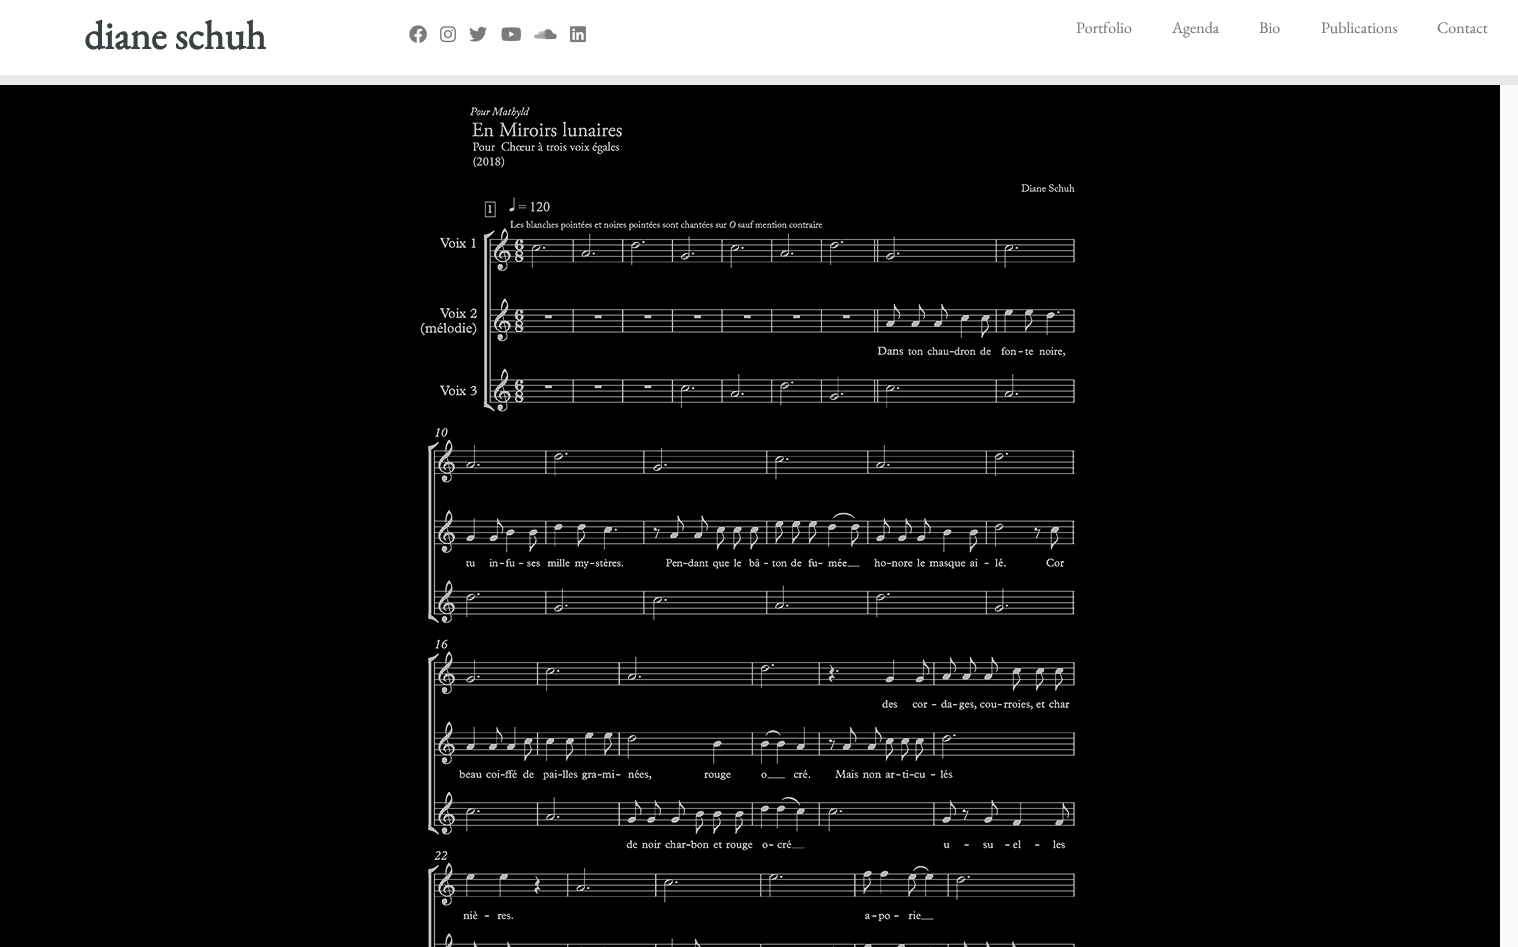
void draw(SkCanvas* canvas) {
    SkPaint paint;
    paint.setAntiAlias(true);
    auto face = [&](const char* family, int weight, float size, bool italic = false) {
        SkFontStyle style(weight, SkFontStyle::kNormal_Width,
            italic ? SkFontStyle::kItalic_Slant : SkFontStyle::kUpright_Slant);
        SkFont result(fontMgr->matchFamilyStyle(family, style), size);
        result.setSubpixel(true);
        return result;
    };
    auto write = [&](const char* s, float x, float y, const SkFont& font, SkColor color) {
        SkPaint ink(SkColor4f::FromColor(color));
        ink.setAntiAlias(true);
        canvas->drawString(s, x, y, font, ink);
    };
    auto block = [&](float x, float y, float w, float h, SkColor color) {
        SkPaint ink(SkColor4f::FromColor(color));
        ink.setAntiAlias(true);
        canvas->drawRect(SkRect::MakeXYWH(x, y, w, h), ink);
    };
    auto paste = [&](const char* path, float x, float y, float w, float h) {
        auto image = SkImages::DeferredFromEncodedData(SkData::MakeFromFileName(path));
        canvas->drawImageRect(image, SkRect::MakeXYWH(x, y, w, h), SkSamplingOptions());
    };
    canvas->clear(SkColorSetRGB(250, 250, 250));
    block(0, 0, 1518, 75, SK_ColorWHITE);
    block(0, 75, 1518, 10, SkColorSetRGB(233, 234, 238));
    auto kFont1 = face("EB Garamond", 700, 40);
    write("diane schuh", 84, 49, kFont1, SkColorSetRGB(57, 65, 67));
    paste("pic1.png", 409, 25, 18, 18);
    paste("pic2.png", 440, 26, 16, 17);
    paste("pic3.png", 469, 26, 18, 16);
    paste("pic4.png", 501, 27, 20, 14);
    paste("pic5.png", 534, 29, 23, 11);
    paste("pic6.png", 570, 26, 16, 17);
    auto kFont2 = face("EB Garamond", 400, 16);
    write("Portfolio", 1076, 33, kFont2, SkColorSetRGB(119, 119, 119));
    write("Agenda", 1172, 33, kFont2, SkColorSetRGB(119, 119, 119));
    write("Bio", 1259, 33, kFont2, SkColorSetRGB(119, 119, 119));
    write("Publications", 1321, 33, kFont2, SkColorSetRGB(119, 119, 119));
    write("Contact", 1437, 33, kFont2, SkColorSetRGB(119, 119, 119));
    paste("pic7.png", 0, 85, 1500, 862);
}
